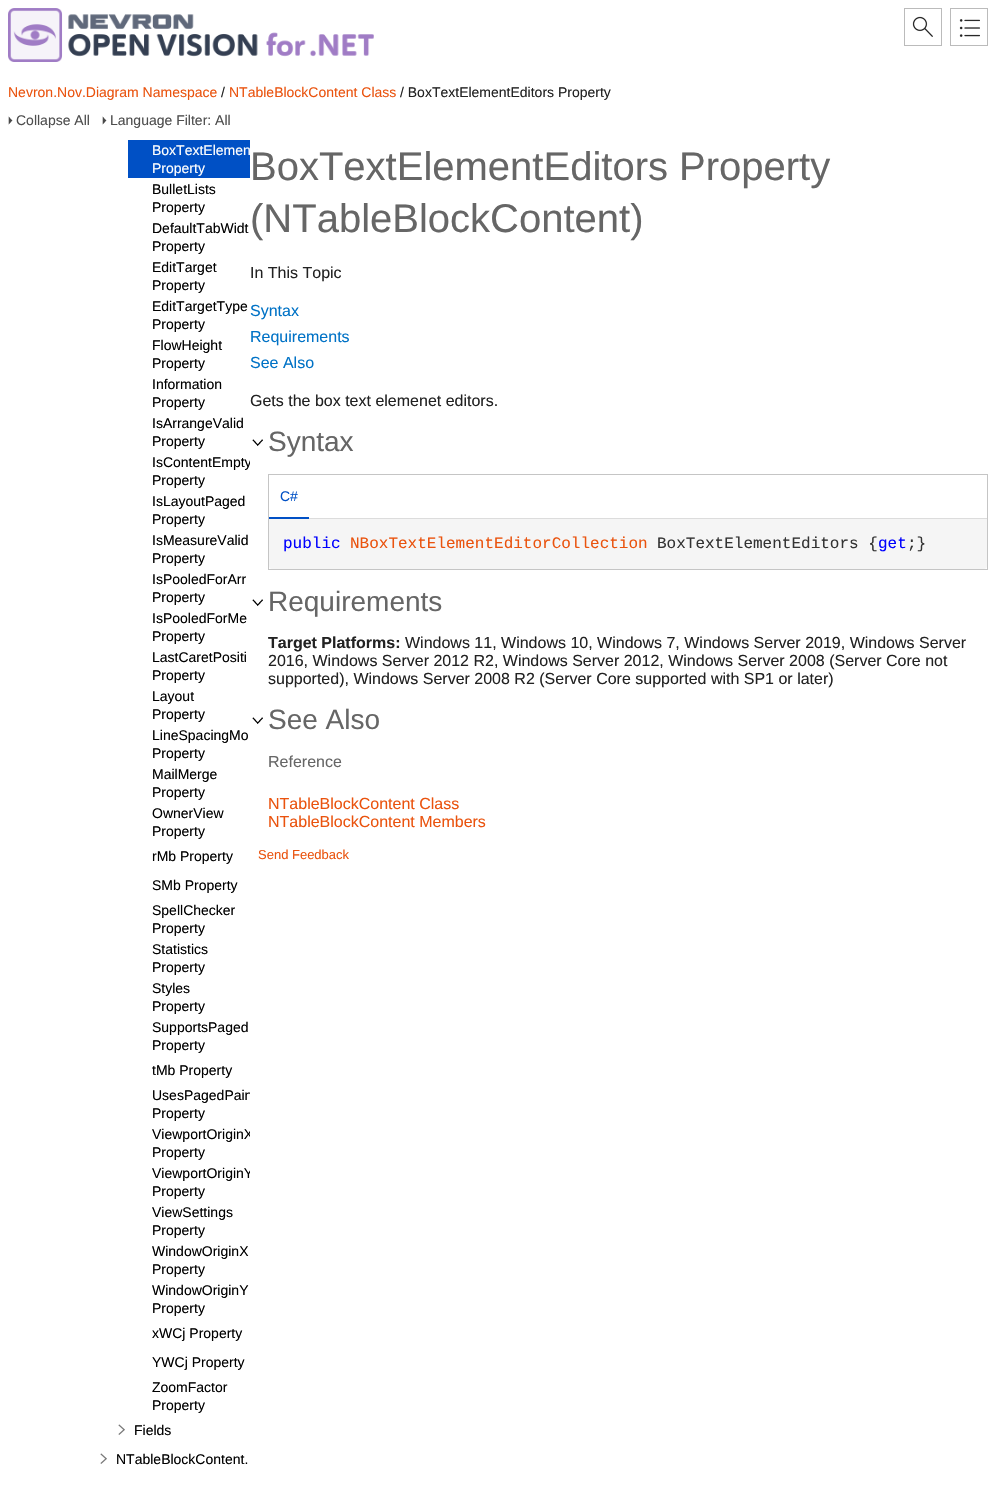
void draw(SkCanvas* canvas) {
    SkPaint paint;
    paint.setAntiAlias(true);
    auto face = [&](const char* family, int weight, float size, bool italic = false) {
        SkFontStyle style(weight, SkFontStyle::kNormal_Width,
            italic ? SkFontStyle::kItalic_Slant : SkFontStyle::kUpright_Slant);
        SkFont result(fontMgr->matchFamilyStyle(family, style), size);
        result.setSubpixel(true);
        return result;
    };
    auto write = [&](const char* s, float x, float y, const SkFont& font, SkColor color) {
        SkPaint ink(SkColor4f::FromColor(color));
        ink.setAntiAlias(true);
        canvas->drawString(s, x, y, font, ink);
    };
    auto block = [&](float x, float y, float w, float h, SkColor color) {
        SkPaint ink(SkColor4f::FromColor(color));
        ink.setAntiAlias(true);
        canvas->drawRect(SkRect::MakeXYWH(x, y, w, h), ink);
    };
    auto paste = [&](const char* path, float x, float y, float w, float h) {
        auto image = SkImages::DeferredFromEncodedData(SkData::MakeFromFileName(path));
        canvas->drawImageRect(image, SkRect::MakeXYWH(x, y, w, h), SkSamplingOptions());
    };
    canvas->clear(SK_ColorWHITE);
    paste("pic1.png", 8, 8, 366, 54);
    paint.setStyle(SkPaint::kStroke_Style);
    paint.setStrokeWidth(1);
    paint.setColor(SkColorSetRGB(187, 187, 187));
    canvas->drawRect(SkRect::MakeXYWH(904.5f, 8.5f, 37, 37), paint);
    paste("pic2.png", 912, 16, 21, 21);
    paste("pic3.png", 959, 19, 21, 18);
    canvas->drawRect(SkRect::MakeXYWH(950.5f, 8.5f, 37, 37), paint);
    auto kFont1 = face("Liberation Sans", 400, 14);
    write("Nevron.Nov.Diagram Namespace", 8, 97, kFont1, SkColorSetRGB(234, 83, 14));
    write("/", 221, 97, kFont1, SkColorSetRGB(34, 34, 34));
    write("NTableBlockContent Class", 229, 97, kFont1, SkColorSetRGB(234, 83, 14));
    write("/ BoxTextElementEditors Property", 400, 97, kFont1, SkColorSetRGB(34, 34, 34));
    paste("pic4.png", 8, 116, 5, 9);
    write("Collapse All", 16, 125, kFont1, SkColorSetRGB(78, 78, 78));
    paste("pic4.png", 102, 116, 5, 9);
    write("Language Filter: All", 110, 125, kFont1, SkColorSetRGB(78, 78, 78));
    block(128, 140, 122, 38, SkColorSetRGB(0, 80, 197));
    write("BoxTextElemen", 152, 155, kFont1, SK_ColorWHITE);
    write("Property", 152, 173, kFont1, SK_ColorWHITE);
    write("BulletLists", 152, 194, kFont1, SK_ColorBLACK);
    write("Property", 152, 212, kFont1, SK_ColorBLACK);
    write("DefaultTabWidt", 152, 233, kFont1, SK_ColorBLACK);
    write("Property", 152, 251, kFont1, SK_ColorBLACK);
    write("EditTarget", 152, 272, kFont1, SK_ColorBLACK);
    write("Property", 152, 290, kFont1, SK_ColorBLACK);
    write("EditTargetType", 152, 311, kFont1, SK_ColorBLACK);
    write("Property", 152, 329, kFont1, SK_ColorBLACK);
    write("FlowHeight", 152, 350, kFont1, SK_ColorBLACK);
    write("Property", 152, 368, kFont1, SK_ColorBLACK);
    write("Information", 152, 389, kFont1, SK_ColorBLACK);
    write("Property", 152, 407, kFont1, SK_ColorBLACK);
    write("IsArrangeValid", 152, 428, kFont1, SK_ColorBLACK);
    write("Property", 152, 446, kFont1, SK_ColorBLACK);
    canvas->save();
    canvas->clipRect(SkRect::MakeXYWH(8, 140, 242, 1332));
    write("IsContentEmpty", 152, 467, kFont1, SK_ColorBLACK);
    canvas->restore();
    write("Property", 152, 485, kFont1, SK_ColorBLACK);
    write("IsLayoutPaged", 152, 506, kFont1, SK_ColorBLACK);
    write("Property", 152, 524, kFont1, SK_ColorBLACK);
    write("IsMeasureValid", 152, 545, kFont1, SK_ColorBLACK);
    write("Property", 152, 563, kFont1, SK_ColorBLACK);
    write("IsPooledForArr", 152, 584, kFont1, SK_ColorBLACK);
    write("Property", 152, 602, kFont1, SK_ColorBLACK);
    write("IsPooledForMe", 152, 623, kFont1, SK_ColorBLACK);
    write("Property", 152, 641, kFont1, SK_ColorBLACK);
    write("LastCaretPositi", 152, 662, kFont1, SK_ColorBLACK);
    write("Property", 152, 680, kFont1, SK_ColorBLACK);
    write("Layout", 152, 701, kFont1, SK_ColorBLACK);
    write("Property", 152, 719, kFont1, SK_ColorBLACK);
    write("LineSpacingMo", 152, 740, kFont1, SK_ColorBLACK);
    write("Property", 152, 758, kFont1, SK_ColorBLACK);
    write("MailMerge", 152, 779, kFont1, SK_ColorBLACK);
    write("Property", 152, 797, kFont1, SK_ColorBLACK);
    write("OwnerView", 152, 818, kFont1, SK_ColorBLACK);
    write("Property", 152, 836, kFont1, SK_ColorBLACK);
    write("rMb Property", 152, 861, kFont1, SK_ColorBLACK);
    write("SMb Property", 152, 890, kFont1, SK_ColorBLACK);
    write("SpellChecker", 152, 915, kFont1, SK_ColorBLACK);
    write("Property", 152, 933, kFont1, SK_ColorBLACK);
    write("Statistics", 152, 954, kFont1, SK_ColorBLACK);
    write("Property", 152, 972, kFont1, SK_ColorBLACK);
    write("Styles", 152, 993, kFont1, SK_ColorBLACK);
    write("Property", 152, 1011, kFont1, SK_ColorBLACK);
    write("SupportsPaged", 152, 1032, kFont1, SK_ColorBLACK);
    write("Property", 152, 1050, kFont1, SK_ColorBLACK);
    write("tMb Property", 152, 1075, kFont1, SK_ColorBLACK);
    canvas->save();
    canvas->clipRect(SkRect::MakeXYWH(8, 140, 242, 1332));
    write("UsesPagedPain", 152, 1100, kFont1, SK_ColorBLACK);
    canvas->restore();
    write("Property", 152, 1118, kFont1, SK_ColorBLACK);
    canvas->save();
    canvas->clipRect(SkRect::MakeXYWH(8, 140, 242, 1332));
    write("ViewportOriginX", 152, 1139, kFont1, SK_ColorBLACK);
    canvas->restore();
    write("Property", 152, 1157, kFont1, SK_ColorBLACK);
    canvas->save();
    canvas->clipRect(SkRect::MakeXYWH(8, 140, 242, 1332));
    write("ViewportOriginY", 152, 1178, kFont1, SK_ColorBLACK);
    canvas->restore();
    write("Property", 152, 1196, kFont1, SK_ColorBLACK);
    write("ViewSettings", 152, 1217, kFont1, SK_ColorBLACK);
    write("Property", 152, 1235, kFont1, SK_ColorBLACK);
    write("WindowOriginX", 152, 1256, kFont1, SK_ColorBLACK);
    write("Property", 152, 1274, kFont1, SK_ColorBLACK);
    write("WindowOriginY", 152, 1295, kFont1, SK_ColorBLACK);
    write("Property", 152, 1313, kFont1, SK_ColorBLACK);
    write("xWCj Property", 152, 1338, kFont1, SK_ColorBLACK);
    write("YWCj Property", 152, 1367, kFont1, SK_ColorBLACK);
    write("ZoomFactor", 152, 1392, kFont1, SK_ColorBLACK);
    write("Property", 152, 1410, kFont1, SK_ColorBLACK);
    paste("pic5.png", 118, 1424, 7, 11);
    write("Fields", 134, 1435, kFont1, SK_ColorBLACK);
    paste("pic5.png", 100, 1453, 7, 11);
    write("NTableBlockContent.", 116, 1464, kFont1, SK_ColorBLACK);
    auto kFont2 = face("Liberation Sans", 400, 40);
    write("BoxTextElementEditors Property", 250, 180, kFont2, SkColorSetRGB(102, 102, 102));
    write("(NTableBlockContent)", 250, 232, kFont2, SkColorSetRGB(102, 102, 102));
    auto kFont3 = face("Liberation Sans", 400, 16);
    write("In This Topic", 250, 278, kFont3, SkColorSetRGB(34, 34, 34));
    write("Syntax", 250, 316, kFont3, SkColorSetRGB(0, 114, 198));
    write("Requirements", 250, 342, kFont3, SkColorSetRGB(0, 114, 198));
    write("See Also", 250, 368, kFont3, SkColorSetRGB(0, 114, 198));
    write("Gets the box text elemenet editors.", 250, 406, kFont3, SkColorSetRGB(34, 34, 34));
    paste("pic6.png", 252, 439, 11, 7);
    auto kFont4 = face("Liberation Sans", 400, 28);
    write("Syntax", 268, 451, kFont4, SkColorSetRGB(102, 102, 102));
    paint.setColor(SkColorSetRGB(197, 197, 197));
    canvas->drawRect(SkRect::MakeXYWH(268.5f, 474.5f, 719, 95), paint);
    block(309, 518, 678, 1, SkColorSetRGB(220, 220, 220));
    block(269, 517, 40, 2, SkColorSetRGB(0, 80, 197));
    write("C#", 280, 501, kFont1, SkColorSetRGB(0, 80, 197));
    paint.setStyle(SkPaint::kFill_Style);
    paint.setColor(SkColorSetRGB(245, 245, 245));
    canvas->drawPath(SkPathBuilder().moveTo(269, 519).lineTo(987, 519).lineTo(987, 566).cubicTo(987, 567.5f, 985.5f, 569, 984, 569).lineTo(272, 569).cubicTo(270.5f, 569, 269, 567.5f, 269, 566).close().detach(), paint);
    auto kFont5 = face("Liberation Mono", 400, 16);
    write("public", 283, 548, kFont5, SkColorSetRGB(0, 0, 255));
    write("NBoxTextElementEditorCollection", 350, 548, kFont5, SkColorSetRGB(234, 83, 14));
    write("BoxTextElementEditors {", 657, 548, kFont5, SkColorSetRGB(51, 51, 51));
    write("get", 878, 548, kFont5, SkColorSetRGB(0, 0, 255));
    write(";}", 907, 548, kFont5, SkColorSetRGB(51, 51, 51));
    paste("pic6.png", 252, 599, 11, 7);
    write("Requirements", 268, 611, kFont4, SkColorSetRGB(102, 102, 102));
    auto kFont6 = face("Liberation Sans", 700, 16);
    write("Target Platforms:", 268, 648, kFont6, SkColorSetRGB(34, 34, 34));
    write("Windows 11, Windows 10, Windows 7, Windows Server 2019, Windows Server", 405, 648, kFont3, SkColorSetRGB(34, 34, 34));
    write("2016, Windows Server 2012 R2, Windows Server 2012, Windows Server 2008 (Server Core not", 268, 666, kFont3, SkColorSetRGB(34, 34, 34));
    write("supported), Windows Server 2008 R2 (Server Core supported with SP1 or later)", 268, 684, kFont3, SkColorSetRGB(34, 34, 34));
    paste("pic6.png", 252, 717, 11, 7);
    write("See Also", 268, 729, kFont4, SkColorSetRGB(102, 102, 102));
    write("Reference", 268, 767, kFont3, SkColorSetRGB(102, 102, 102));
    write("NTableBlockContent Class", 268, 809, kFont3, SkColorSetRGB(234, 83, 14));
    write("NTableBlockContent Members", 268, 827, kFont3, SkColorSetRGB(234, 83, 14));
    auto kFont7 = face("Liberation Sans", 400, 13);
    write("Send Feedback", 258, 859, kFont7, SkColorSetRGB(234, 83, 14));
}
